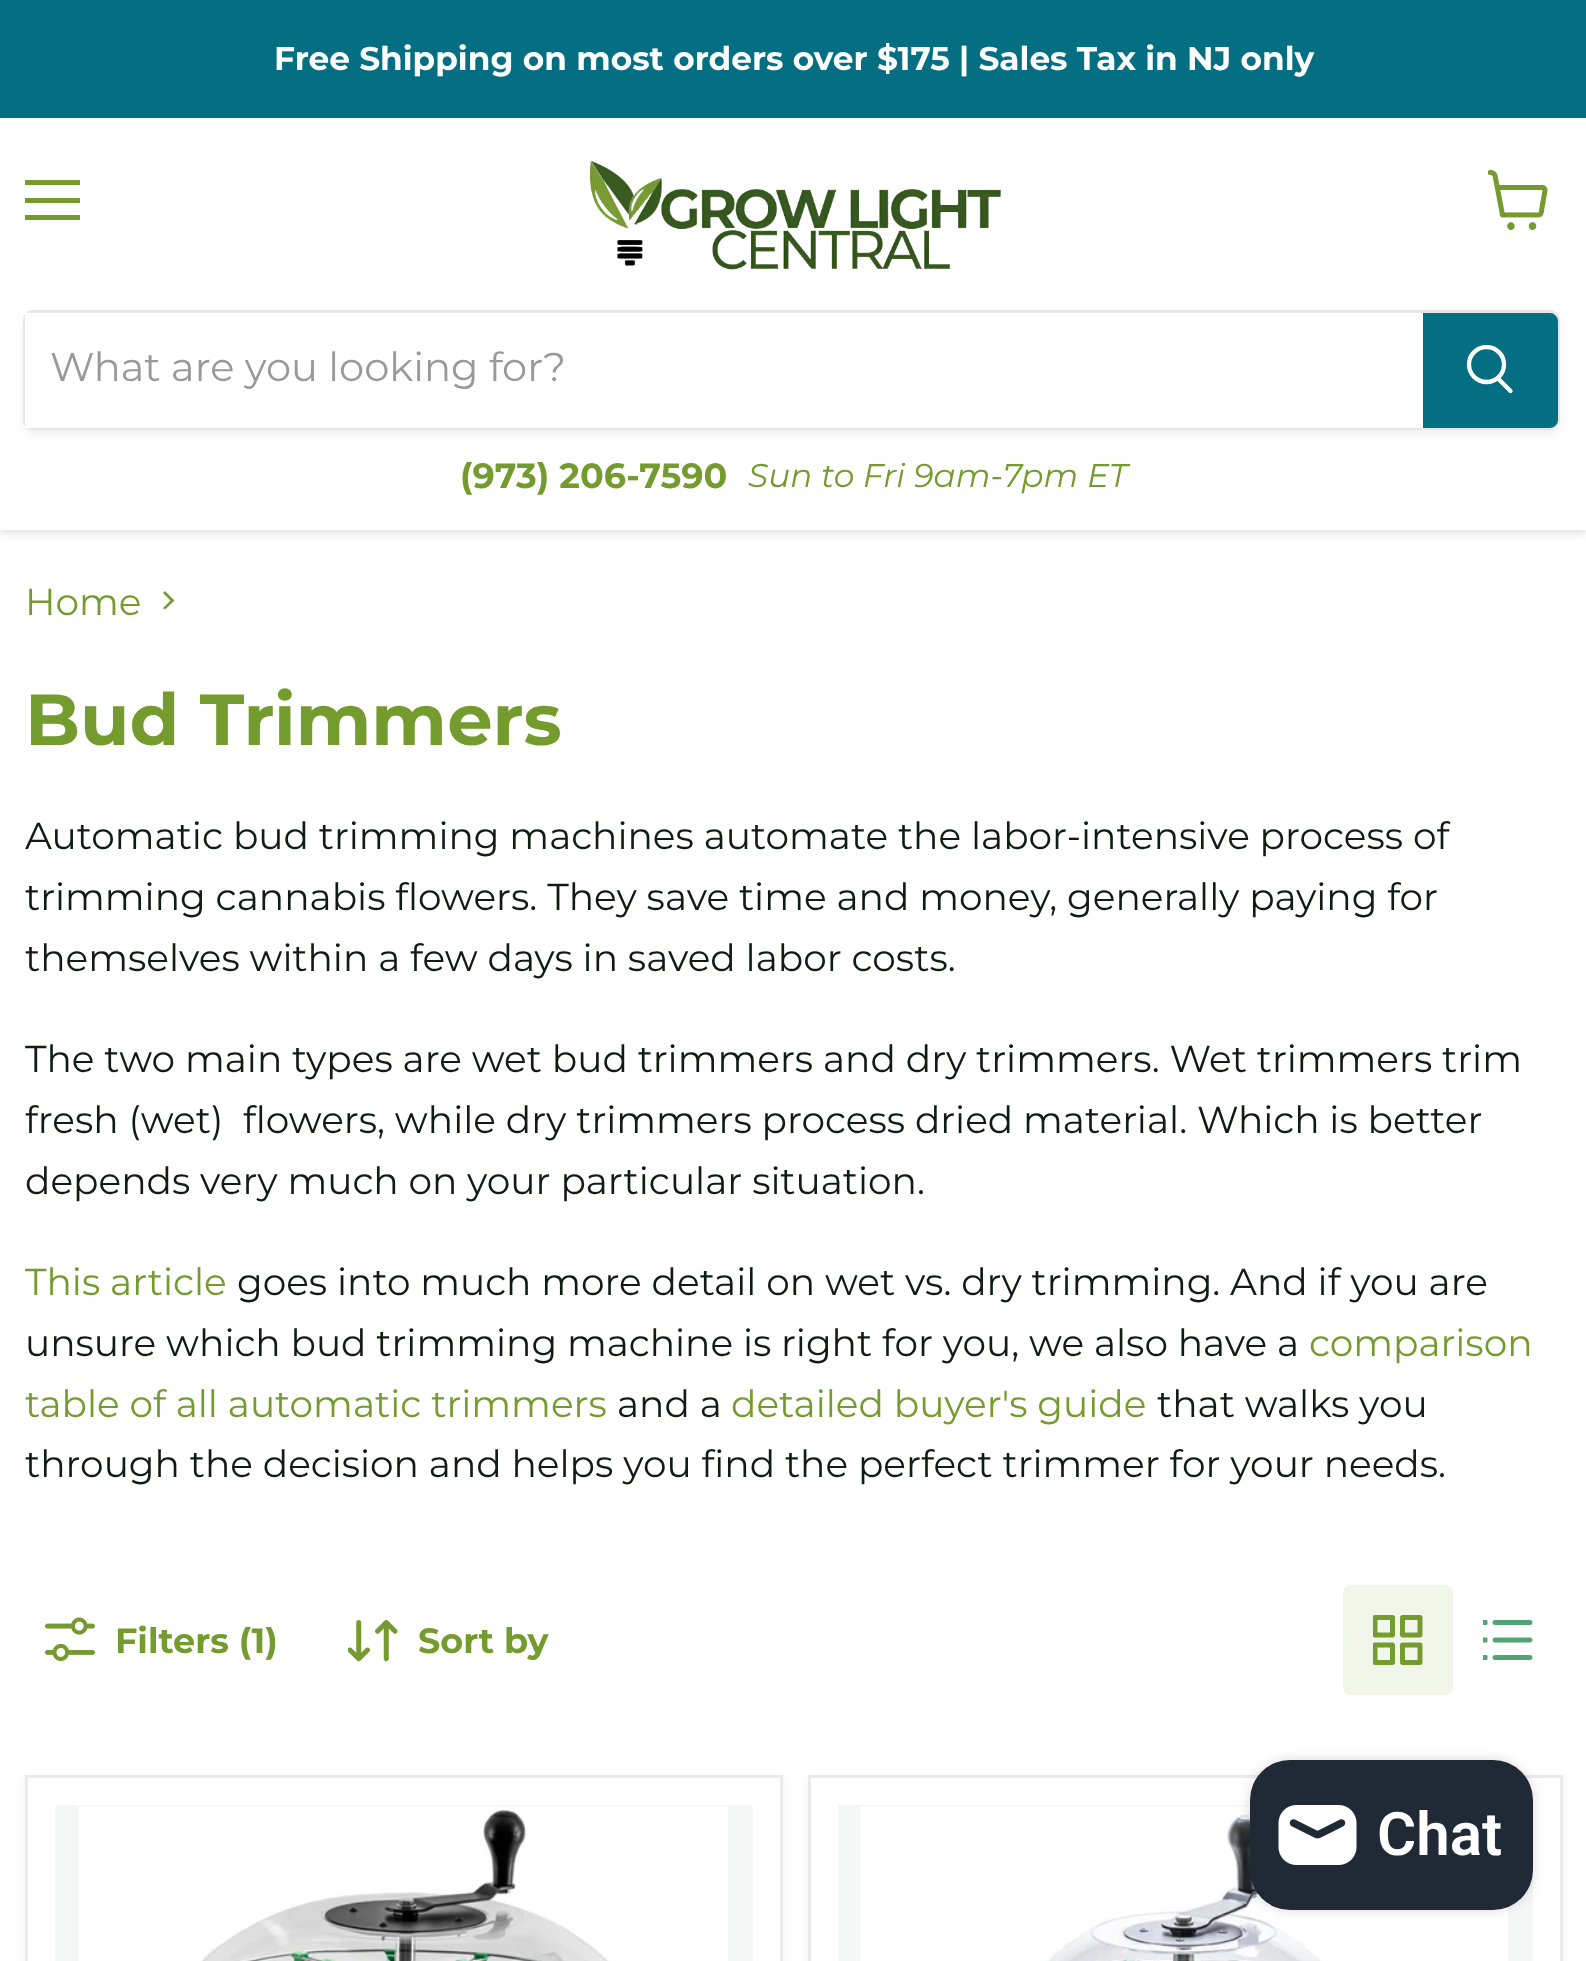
<svg xmlns="http://www.w3.org/2000/svg" xmlns:xlink="http://www.w3.org/1999/xlink" width="1586" height="1961" viewBox="0 0 1586 1961">
<style>
.cls-1{font:bold 32.8px Montserrat;fill:#ffffff}
.cls-2{font:100 40px Montserrat;fill:#999999}
.cls-3{font:bold 35px Montserrat;fill:#749b2e}
.cls-4{font:italic 32.8px Montserrat;fill:#749b2e}
.cls-5{font:100 37.5px Montserrat;fill:#749b2e}
.cls-6{font:bold 72px Montserrat;fill:#749b2e}
.cls-7{font:100 37.5px Montserrat;fill:#0e1c14}
.cls-8{font:600 60px Roboto;fill:#ffffff}
</style>
<defs>
<clipPath id="clip1"><rect x="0" y="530" width="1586" height="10"/></clipPath>
<clipPath id="clip2"><path d="M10 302H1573V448H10ZM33 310H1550C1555.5 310 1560 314.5 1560 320V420C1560 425.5 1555.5 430 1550 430H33C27.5 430 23 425.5 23 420V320C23 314.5 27.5 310 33 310Z" clip-rule="evenodd"/></clipPath>
<clipPath id="clip3"><rect x="1465" y="345" width="50" height="53"/></clipPath>
</defs>
<rect width="100%" height="100%" fill="#ffffff"/>
<g clip-path="url(#clip1)">
<rect fill="#808080" fill-opacity="0.25" filter="blur(5px)" x="0" y="120" width="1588" height="413"/>
</g>
<rect fill="#046e82" x="0" y="0" width="1586" height="118"/>
<rect fill="#749b2e" x="25" y="180" width="55" height="5"/>
<rect fill="#749b2e" x="25" y="198" width="55" height="5"/>
<rect fill="#749b2e" x="25" y="215" width="55" height="5"/>
<image xlink:href="image0.png" x="1488" y="170" width="60" height="60"/>
<image xlink:href="image1.png" x="589" y="160" width="412" height="110"/>
<g clip-path="url(#clip2)">
<rect fill="#808080" fill-opacity="0.11" filter="blur(4px)" x="23" y="315" width="1537" height="120" rx="10"/>
</g>
<rect fill="none" stroke="#808080" stroke-opacity="0.2" stroke-width="3" x="24.5" y="311.5" width="1534" height="117" rx="8.5"/>
<rect fill="#ffffff" x="25" y="313" width="1398" height="115"/>
<path fill="#046e82" stroke="#046e82" stroke-width="3" d="M1424.5 314.5H1550C1553.5 314.5 1556.5 317.5 1556.5 321V420C1556.5 423.5 1553.5 426.5 1550 426.5H1424.5Z"/>
<path fill="none" stroke="#ffffff" stroke-width="4.3" stroke-linecap="round" d="M1510.5 391L1498.5 379"/>
<g clip-path="url(#clip3)">
<circle fill="none" stroke="#ffffff" stroke-width="4.3" cx="1486.5" cy="364.5" r="17.5"/>
</g>
<path fill="#749b2e" fill-rule="evenodd" d="M163 608L165 609.5L174.5 600.5L165 591L163 593L170.5 600.5Z"/>
<image xlink:href="image2.png" x="45" y="1617" width="50" height="44"/>
<image xlink:href="image3.png" x="348" y="1620" width="50" height="42"/>
<rect fill="#f1f5ea" x="1343" y="1585" width="110" height="110" rx="8"/>
<image xlink:href="image4.png" x="1373" y="1615" width="50" height="50"/>
<image xlink:href="image5.png" x="1483" y="1620" width="50" height="40"/>
<rect fill="#808080" fill-opacity="0.11" filter="blur(5px)" x="25" y="1778" width="758" height="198"/>
<rect fill="#ffffff" stroke="#ebebeb" stroke-width="3" x="26.5" y="1776.5" width="755" height="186"/>
<rect fill="#f5f6f6" x="55" y="1805" width="698" height="156"/>
<image xlink:href="image6.png" x="78" y="1806" width="650" height="155"/>
<rect fill="#808080" fill-opacity="0.11" filter="blur(5px)" x="808" y="1778" width="755" height="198"/>
<rect fill="#ffffff" stroke="#ebebeb" stroke-width="3" x="809.5" y="1776.5" width="752" height="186"/>
<rect fill="#f5f6f6" x="838" y="1805" width="695" height="156"/>
<image xlink:href="image7.png" x="860" y="1806" width="648" height="155"/>
<rect fill="#000000" fill-opacity="0.15" filter="blur(6px)" x="1250" y="1760" width="283" height="150" rx="40"/>
<rect fill="#202a36" x="1250" y="1760" width="283" height="150" rx="40"/>
<image xlink:href="image8.png" x="1278" y="1805" width="79" height="60"/>
<text class="cls-1" x="274" y="70">Free Shipping on most orders over $175 | Sales Tax in NJ only</text>
<text class="cls-2" x="50" y="381">What are you looking for?</text>
<text class="cls-3" x="460" y="488">(973) 206-7590</text>
<text class="cls-4" x="748" y="487">Sun to Fri 9am-7pm ET</text>
<text class="cls-5" x="25" y="615">Home</text>
<text class="cls-6" x="25" y="745">Bud Trimmers</text>
<text class="cls-7"><tspan x="25" y="849">Automatic bud trimming machines automate the labor-intensive process of</tspan><tspan x="25" y="910">trimming cannabis flowers. They save time and money, generally paying for</tspan><tspan x="25" y="971">themselves within a few days in saved labor costs.</tspan></text>
<text class="cls-7" xml:space="preserve"><tspan x="25" y="1072">The two main types are wet bud trimmers and dry trimmers. Wet trimmers trim</tspan><tspan x="25" y="1133">fresh (wet)  flowers, while dry trimmers process dried material. Which is better</tspan><tspan x="25" y="1194">depends very much on your particular situation.</tspan></text>
<text class="cls-5" x="25" y="1295">This article</text>
<text class="cls-7" x="237" y="1295">goes into much more detail on wet vs. dry trimming. And if you are</text>
<text class="cls-7" x="25" y="1356">unsure which bud trimming machine is right for you, we also have a</text>
<text class="cls-5" x="1309" y="1356">comparison</text>
<text class="cls-5" x="25" y="1417">table of all automatic trimmers</text>
<text class="cls-7" x="617" y="1417">and a</text>
<text class="cls-5" x="731" y="1417">detailed buyer's guide</text>
<text class="cls-7" x="1157" y="1417">that walks you</text>
<text class="cls-7" x="25" y="1477">through the decision and helps you find the perfect trimmer for your needs.</text>
<text class="cls-3" x="115" y="1653">Filters (1)</text>
<text class="cls-3" x="418" y="1653">Sort by</text>
<text class="cls-8" x="1377" y="1855">Chat</text>
</svg>
